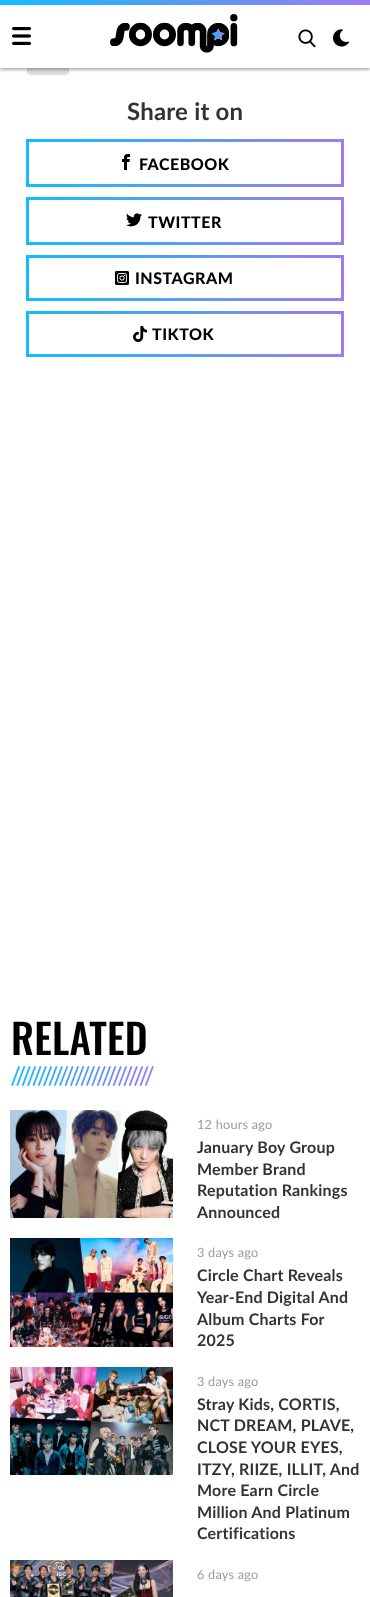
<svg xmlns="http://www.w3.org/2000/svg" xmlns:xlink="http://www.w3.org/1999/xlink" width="370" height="1597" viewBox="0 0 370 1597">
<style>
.cls-1{font:bold 24px Lato;letter-spacing:0.2px;fill:#333333}
.cls-2{font:900 16px Lato;letter-spacing:0.5px;fill:#000000}
.cls-3{font:500 41px Oswald;letter-spacing:0.2px;fill:#000000}
.cls-4{font:12.75px Lato;letter-spacing:0.2px;fill:#9c9c9c}
.cls-5{font:bold 16px Lato;letter-spacing:0.2px;fill:#333333}
</style>
<rect width="100%" height="100%" fill="#ffffff"/>
<rect fill="#dddddd" x="27" y="54" width="42" height="21" rx="4"/>
<rect fill="#000000" fill-opacity="0.3" filter="blur(1.5px)" x="0" y="2" width="370" height="68"/>
<rect fill="#ffffff" x="0" y="5" width="370" height="63"/>
<image xlink:href="image0.png" x="0" y="0" width="370" height="5"/>
<image xlink:href="image1.png" x="12" y="27" width="19" height="18"/>
<image xlink:href="image2.png" x="110" y="14" width="128" height="39"/>
<image xlink:href="image3.png" x="298" y="29" width="18" height="19"/>
<image xlink:href="image4.png" x="333" y="29" width="16" height="18"/>
<image xlink:href="image5.png" x="26" y="139" width="318" height="48"/>
<image xlink:href="image6.png" x="122" y="154" width="8" height="16"/>
<image xlink:href="image7.png" x="26" y="197" width="318" height="48"/>
<image xlink:href="image8.png" x="126" y="213" width="16" height="14"/>
<image xlink:href="image9.png" x="26" y="255" width="318" height="46"/>
<image xlink:href="image10.png" x="115" y="271" width="14" height="14"/>
<image xlink:href="image9.png" x="26" y="311" width="318" height="46"/>
<image xlink:href="image11.png" x="133" y="326" width="14" height="16"/>
<image xlink:href="image12.png" x="11" y="1066" width="143" height="20"/>
<image xlink:href="image13.png" x="10" y="1110" width="163" height="108"/>
<image xlink:href="image14.png" x="10" y="1238" width="163" height="109"/>
<image xlink:href="image15.png" x="10" y="1367" width="163" height="108"/>
<image xlink:href="image16.png" x="10" y="1560" width="163" height="37"/>
<text class="cls-1" x="127" y="120">Share it on</text>
<text class="cls-2" x="139" y="170">FACEBOOK</text>
<text class="cls-2" x="148" y="228">TWITTER</text>
<text class="cls-2" x="135" y="284">INSTAGRAM</text>
<text class="cls-2" x="152" y="340">TIKTOK</text>
<text class="cls-3" x="11" y="1055">RELATED</text>
<text class="cls-4" x="197" y="1129">12 hours ago</text>
<text class="cls-5"><tspan x="197" y="1153">January Boy Group</tspan><tspan x="197" y="1175">Member Brand</tspan><tspan x="197" y="1196">Reputation Rankings</tspan><tspan x="197" y="1218">Announced</tspan></text>
<text class="cls-4" x="197" y="1257">3 days ago</text>
<text class="cls-5"><tspan x="197" y="1281">Circle Chart Reveals</tspan><tspan x="197" y="1303">Year-End Digital And</tspan><tspan x="197" y="1325">Album Charts For</tspan><tspan x="197" y="1346">2025</tspan></text>
<text class="cls-4" x="197" y="1386">3 days ago</text>
<text class="cls-5"><tspan x="197" y="1410">Stray Kids, CORTIS,</tspan><tspan x="197" y="1431">NCT DREAM, PLAVE,</tspan><tspan x="197" y="1453">CLOSE YOUR EYES,</tspan><tspan x="197" y="1475">ITZY, RIIZE, ILLIT, And</tspan><tspan x="197" y="1496">More Earn Circle</tspan><tspan x="197" y="1518">Million And Platinum</tspan><tspan x="197" y="1539">Certifications</tspan></text>
<text class="cls-4" x="197" y="1579">6 days ago</text>
</svg>
